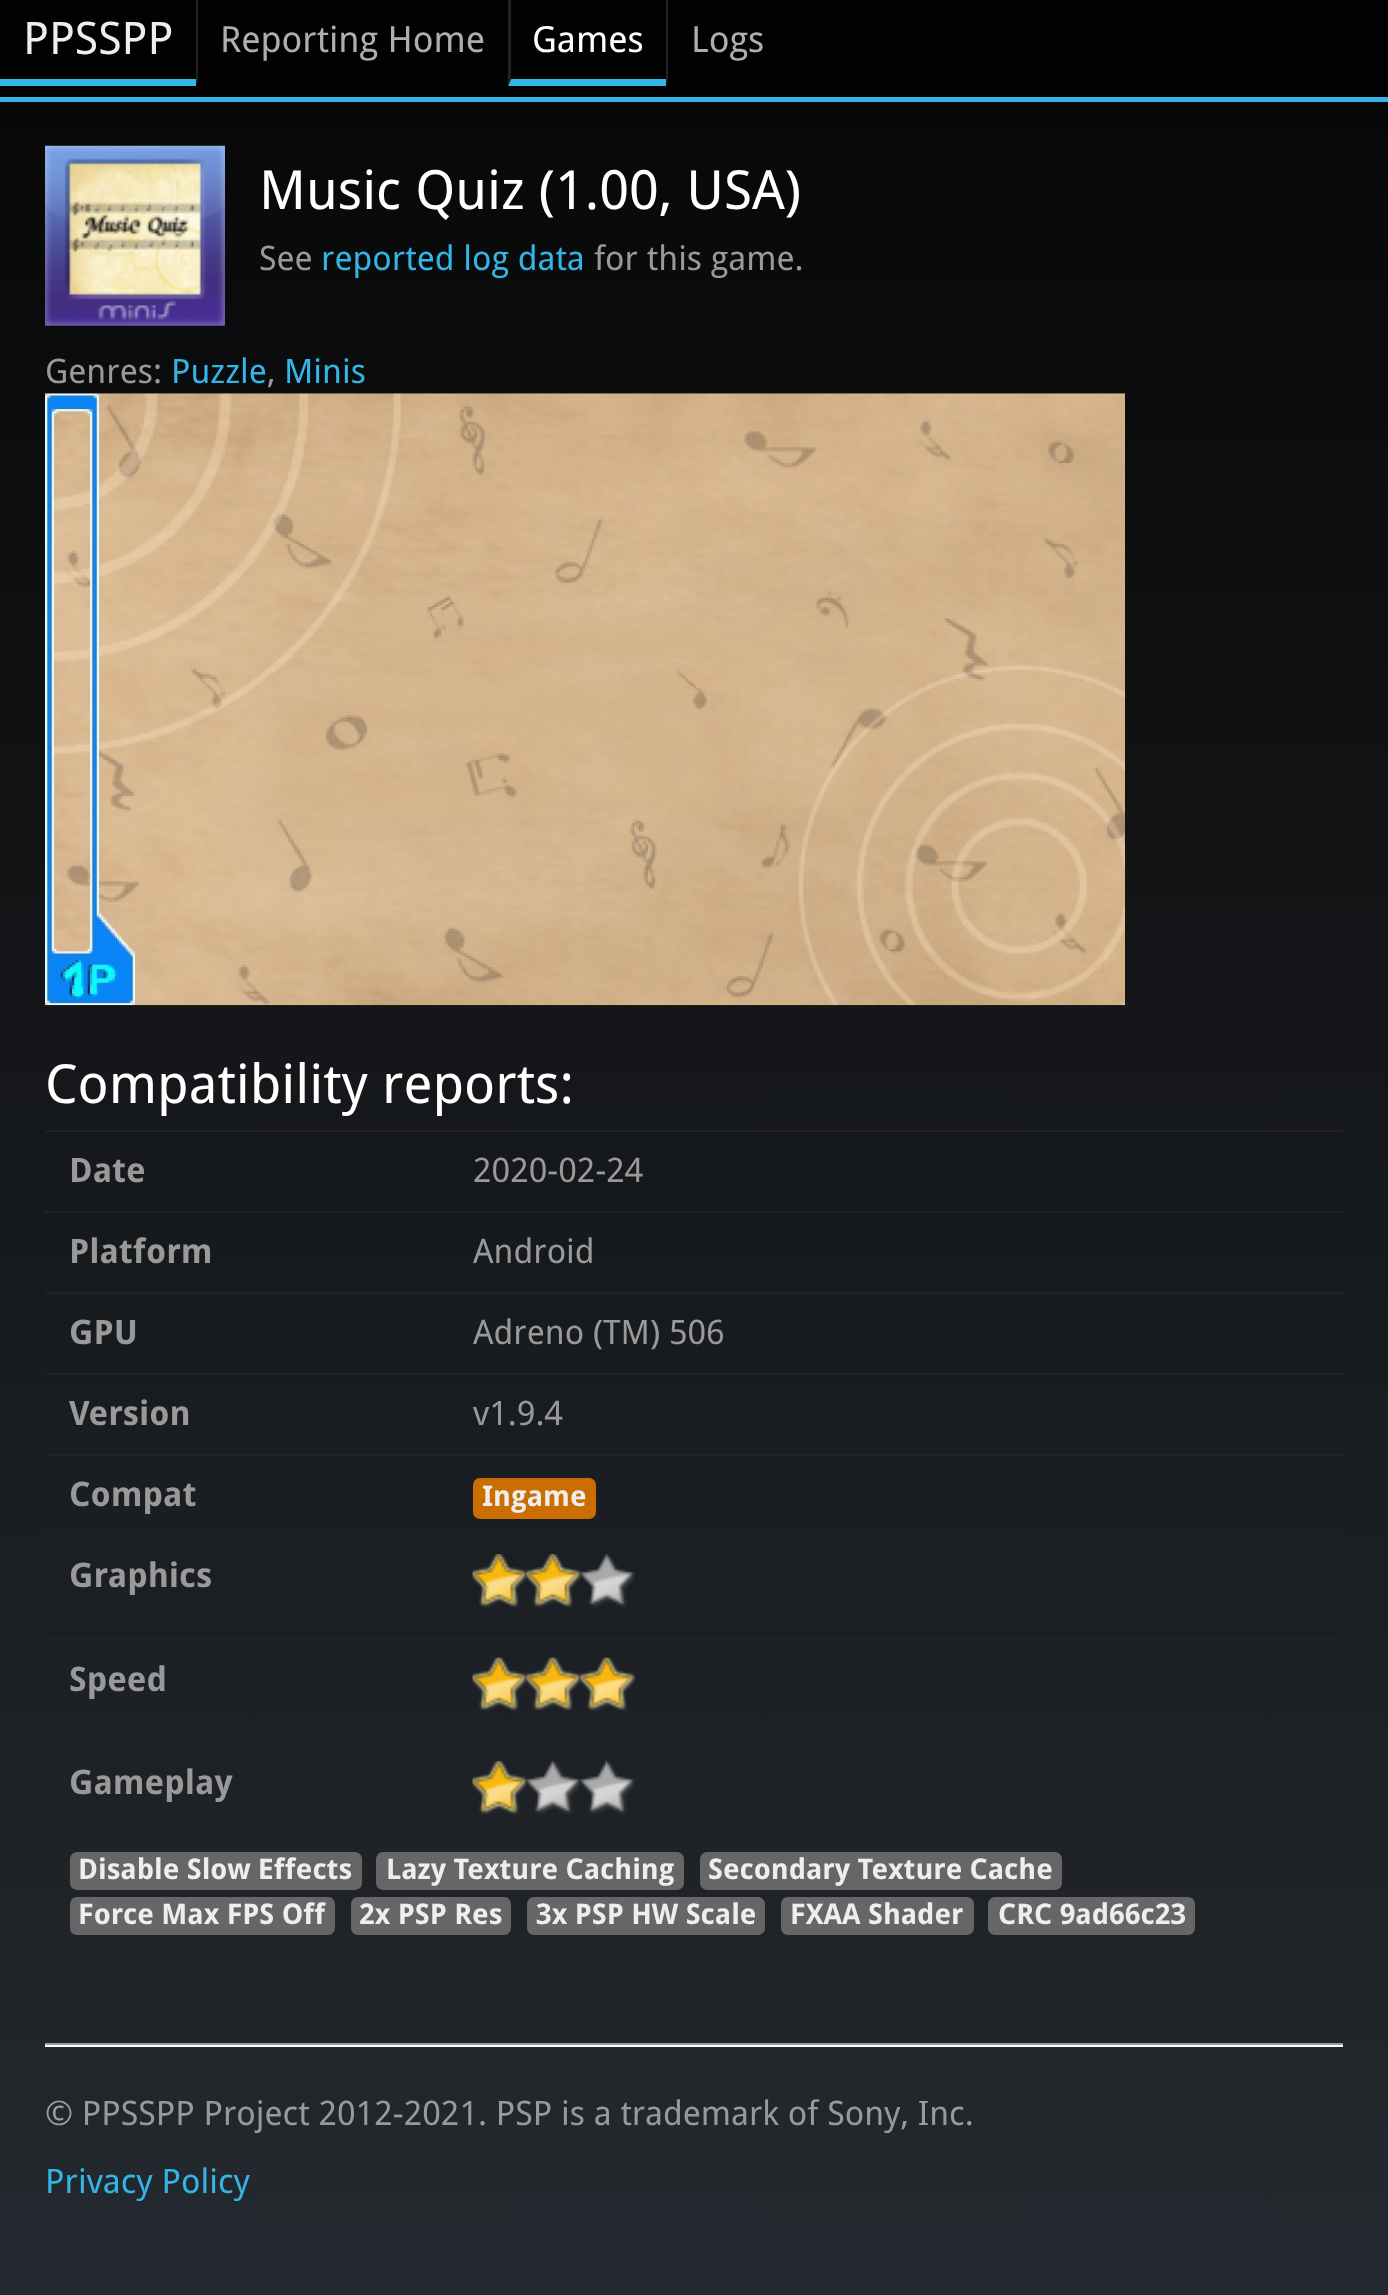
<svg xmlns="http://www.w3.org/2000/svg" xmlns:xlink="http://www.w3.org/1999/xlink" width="1388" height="2295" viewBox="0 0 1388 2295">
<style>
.cls-1{font:45px Droid Sans;fill:#eeeeee}
.cls-2{font:36px Droid Sans;fill:#adafae}
.cls-3{font:36px Droid Sans;fill:#ffffff}
.cls-4{font:54px Droid Sans;fill:#ffffff}
.cls-5{font:33.75px Droid Sans;fill:#999999}
.cls-6{font:33.75px Droid Sans;fill:#33b5e5}
.cls-7{font:bold 33.75px Droid Sans;fill:#999999}
.cls-8{font:bold 28.5px Droid Sans;fill:#eeeeee}
</style>
<defs>
<linearGradient id="g1" gradientUnits="userSpaceOnUse" x1="694" y1="-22" x2="694" y2="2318"><stop offset="0" stop-color="#060606"/><stop offset="1" stop-color="#252a30"/></linearGradient>
</defs>
<rect width="100%" height="100%" fill="#ffffff"/>
<rect fill="url(#g1)" x="0" y="102" width="1388" height="2193"/>
<rect fill="#020202" x="0" y="0" width="1388" height="97"/>
<rect fill="#33b5e5" x="0" y="97" width="1388" height="5"/>
<rect fill="#33b5e5" x="0" y="79" width="196" height="7"/>
<path fill="#222222" d="M196 86V-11H198V79Z"/>
<path fill="#33b5e5" d="M666 86H508L511 79H666Z"/>
<path fill="#222222" d="M508 86V-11H511V79Z"/>
<path fill="#222222" d="M666 86V-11H668V79Z"/>
<image xlink:href="image0.png" x="45" y="145" width="180" height="181"/>
<image xlink:href="image1.png" x="45" y="393" width="1080" height="613"/>
<rect fill="#222222" x="45" y="1130" width="1298" height="2"/>
<rect fill="#222222" x="45" y="1211" width="1298" height="2"/>
<rect fill="#222222" x="45" y="1292" width="1298" height="2"/>
<rect fill="#222222" x="45" y="1373" width="1298" height="2"/>
<rect fill="#222222" x="45" y="1454" width="1298" height="2"/>
<rect fill="#cc6d00" x="473" y="1478" width="123" height="41" rx="7"/>
<rect fill="#222222" x="45" y="1535" width="1298" height="2"/>
<image xlink:href="image2.png" x="472" y="1554" width="163" height="54"/>
<image xlink:href="image3.png" x="472" y="1554" width="109" height="53"/>
<rect fill="#222222" x="45" y="1638" width="1298" height="2"/>
<image xlink:href="image4.png" x="472" y="1657" width="163" height="55"/>
<image xlink:href="image5.png" x="472" y="1657" width="163" height="53"/>
<rect fill="#222222" x="45" y="1742" width="1298" height="2"/>
<image xlink:href="image6.png" x="472" y="1761" width="163" height="54"/>
<image xlink:href="image7.png" x="472" y="1761" width="55" height="53"/>
<rect fill="#666666" x="70" y="1852" width="292" height="38" rx="7"/>
<rect fill="#666666" x="376" y="1852" width="308" height="38" rx="7"/>
<rect fill="#666666" x="700" y="1852" width="362" height="38" rx="7"/>
<rect fill="#666666" x="70" y="1897" width="265" height="38" rx="7"/>
<rect fill="#666666" x="351" y="1897" width="160" height="38" rx="7"/>
<rect fill="#666666" x="527" y="1897" width="238" height="38" rx="7"/>
<rect fill="#666666" x="781" y="1897" width="193" height="38" rx="7"/>
<rect fill="#666666" x="988" y="1897" width="207" height="38" rx="7"/>
<rect fill="#999999" x="45" y="2043" width="1298" height="2"/>
<rect fill="#ffffff" x="45" y="2045" width="1298" height="2"/>
<text class="cls-1" x="23" y="54">PPSSPP</text>
<text class="cls-2" x="220" y="52">Reporting Home</text>
<text class="cls-3" x="532" y="52">Games</text>
<text class="cls-2" x="691" y="52">Logs</text>
<text class="cls-4" x="259" y="209">Music Quiz (1.00, USA)</text>
<text class="cls-5" x="259" y="270">See</text>
<text class="cls-6" x="321" y="270">reported log data</text>
<text class="cls-5" x="594" y="270">for this game.</text>
<text class="cls-5" x="45" y="383">Genres:</text>
<text class="cls-6" x="171" y="383">Puzzle</text>
<text class="cls-5" x="267" y="383">,</text>
<text class="cls-6" x="284" y="383">Minis</text>
<text class="cls-4" x="45" y="1103">Compatibility reports:</text>
<text class="cls-7" x="69" y="1182">Date</text>
<text class="cls-5" x="473" y="1182">2020-02-24</text>
<text class="cls-7" x="69" y="1263">Platform</text>
<text class="cls-5" x="473" y="1263">Android</text>
<text class="cls-7" x="69" y="1344">GPU</text>
<text class="cls-5" x="473" y="1344">Adreno (TM) 506</text>
<text class="cls-7" x="69" y="1425">Version</text>
<text class="cls-5" x="473" y="1425">v1.9.4</text>
<text class="cls-7" x="69" y="1506">Compat</text>
<text class="cls-8" x="482" y="1506">Ingame</text>
<text class="cls-7" x="69" y="1587">Graphics</text>
<text class="cls-7" x="69" y="1691">Speed</text>
<text class="cls-7" x="69" y="1794">Gameplay</text>
<text class="cls-8" x="78" y="1879">Disable Slow Effects</text>
<text class="cls-8" x="386" y="1879">Lazy Texture Caching</text>
<text class="cls-8" x="708" y="1879">Secondary Texture Cache</text>
<text class="cls-8" x="78" y="1924">Force Max FPS Off</text>
<text class="cls-8" x="359" y="1924">2x PSP Res</text>
<text class="cls-8" x="536" y="1924">3x PSP HW Scale</text>
<text class="cls-8" x="790" y="1924">FXAA Shader</text>
<text class="cls-8" x="998" y="1924">CRC 9ad66c23</text>
<text class="cls-5" x="45" y="2125">© PPSSPP Project 2012-2021. PSP is a trademark of Sony, Inc.</text>
<text class="cls-6" x="45" y="2193">Privacy Policy</text>
</svg>
